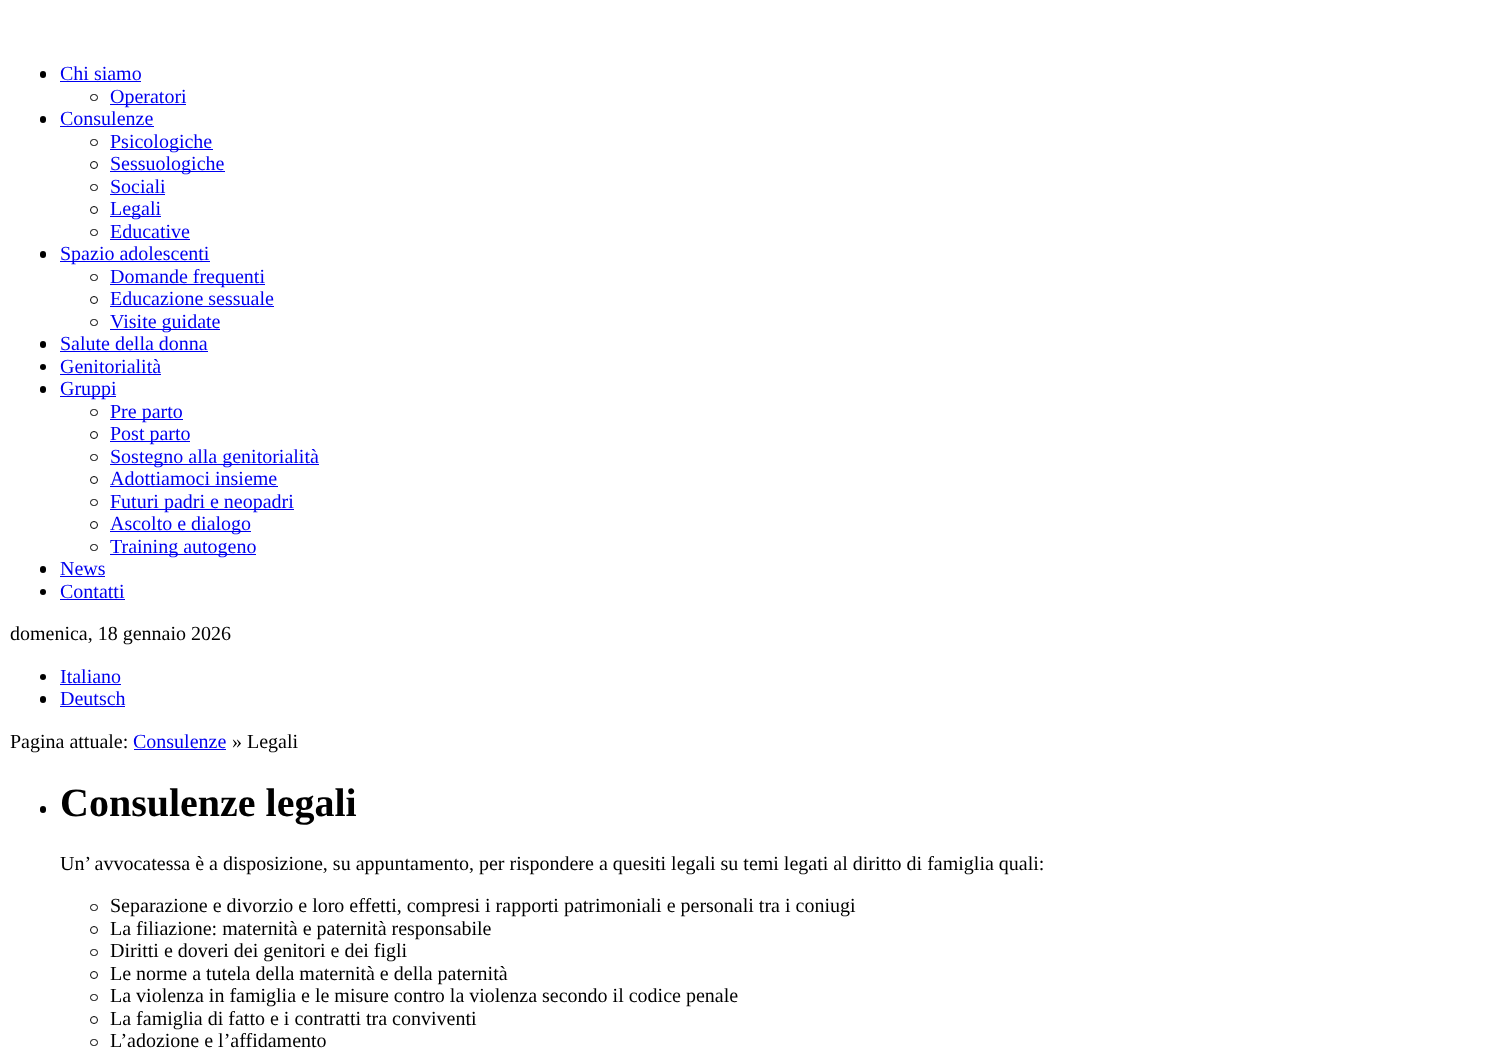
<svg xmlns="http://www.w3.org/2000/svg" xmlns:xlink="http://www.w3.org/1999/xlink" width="1505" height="1058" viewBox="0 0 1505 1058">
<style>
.cls-1{font:20px Liberation Serif;fill:#0000ee}
.cls-2{font:20px Liberation Serif;fill:#000000}
.cls-3{font:bold 40px Liberation Serif;fill:#000000}
</style>
<rect width="100%" height="100%" fill="#ffffff"/>
<rect fill="#000000" x="40" y="71" width="6" height="7" rx="3"/>
<rect fill="#0000ee" x="60" y="81" width="81" height="1"/>
<rect fill="none" stroke="#000000" x="90.5" y="94.5" width="7" height="6" rx="3"/>
<rect fill="#0000ee" x="110" y="104" width="76" height="1"/>
<rect fill="#000000" x="40" y="116" width="6" height="7" rx="3"/>
<rect fill="#0000ee" x="60" y="126" width="94" height="1"/>
<rect fill="none" stroke="#000000" x="90.5" y="139.5" width="7" height="6" rx="3"/>
<rect fill="#0000ee" x="110" y="149" width="103" height="1"/>
<circle fill="none" stroke="#000000" cx="94" cy="165" r="3.5"/>
<rect fill="#0000ee" x="110" y="171" width="115" height="1"/>
<rect fill="none" stroke="#000000" x="90.5" y="184.5" width="7" height="6" rx="3"/>
<rect fill="#0000ee" x="110" y="194" width="55" height="1"/>
<circle fill="none" stroke="#000000" cx="94" cy="210" r="3.5"/>
<rect fill="#0000ee" x="110" y="216" width="51" height="1"/>
<rect fill="none" stroke="#000000" x="90.5" y="229.5" width="7" height="6" rx="3"/>
<rect fill="#0000ee" x="110" y="239" width="80" height="1"/>
<rect fill="#000000" x="40" y="251" width="6" height="7" rx="3"/>
<rect fill="#0000ee" x="60" y="261" width="150" height="1"/>
<rect fill="none" stroke="#000000" x="90.5" y="274.5" width="7" height="6" rx="3"/>
<rect fill="#0000ee" x="110" y="284" width="155" height="1"/>
<circle fill="none" stroke="#000000" cx="94" cy="300" r="3.5"/>
<rect fill="#0000ee" x="110" y="306" width="164" height="1"/>
<rect fill="none" stroke="#000000" x="90.5" y="319.5" width="7" height="6" rx="3"/>
<rect fill="#0000ee" x="110" y="329" width="110" height="1"/>
<rect fill="#000000" x="40" y="341" width="6" height="7" rx="3"/>
<rect fill="#0000ee" x="60" y="351" width="148" height="1"/>
<circle fill="#000000" cx="43" cy="367" r="3"/>
<rect fill="#0000ee" x="60" y="374" width="101" height="1"/>
<rect fill="#000000" x="40" y="386" width="6" height="7" rx="3"/>
<rect fill="#0000ee" x="60" y="396" width="56" height="1"/>
<rect fill="none" stroke="#000000" x="90.5" y="409.5" width="7" height="6" rx="3"/>
<rect fill="#0000ee" x="110" y="419" width="73" height="1"/>
<circle fill="none" stroke="#000000" cx="94" cy="435" r="3.5"/>
<rect fill="#0000ee" x="110" y="441" width="80" height="1"/>
<rect fill="none" stroke="#000000" x="90.5" y="454.5" width="7" height="6" rx="3"/>
<rect fill="#0000ee" x="110" y="464" width="209" height="1"/>
<circle fill="none" stroke="#000000" cx="94" cy="480" r="3.5"/>
<rect fill="#0000ee" x="110" y="486" width="168" height="1"/>
<rect fill="none" stroke="#000000" x="90.5" y="499.5" width="7" height="6" rx="3"/>
<rect fill="#0000ee" x="110" y="509" width="184" height="1"/>
<circle fill="none" stroke="#000000" cx="94" cy="525" r="3.5"/>
<rect fill="#0000ee" x="110" y="531" width="141" height="1"/>
<rect fill="none" stroke="#000000" x="90.5" y="544.5" width="7" height="6" rx="3"/>
<rect fill="#0000ee" x="110" y="554" width="146" height="1"/>
<rect fill="#000000" x="40" y="566" width="6" height="7" rx="3"/>
<rect fill="#0000ee" x="60" y="576" width="45" height="1"/>
<circle fill="#000000" cx="43" cy="592" r="3"/>
<rect fill="#0000ee" x="60" y="599" width="65" height="1"/>
<circle fill="#000000" cx="43" cy="677" r="3"/>
<rect fill="#0000ee" x="60" y="684" width="61" height="1"/>
<rect fill="#000000" x="40" y="696" width="6" height="7" rx="3"/>
<rect fill="#0000ee" x="60" y="706" width="65" height="1"/>
<rect fill="#0000ee" x="134" y="749" width="92" height="1"/>
<rect fill="#000000" x="40" y="806" width="6" height="7" rx="3"/>
<rect fill="none" stroke="#000000" x="90.5" y="904.5" width="7" height="6" rx="3"/>
<circle fill="none" stroke="#000000" cx="94" cy="930" r="3.5"/>
<rect fill="none" stroke="#000000" x="90.5" y="949.5" width="7" height="6" rx="3"/>
<circle fill="none" stroke="#000000" cx="94" cy="975" r="3.5"/>
<rect fill="none" stroke="#000000" x="90.5" y="994.5" width="7" height="6" rx="3"/>
<circle fill="none" stroke="#000000" cx="94" cy="1020" r="3.5"/>
<rect fill="none" stroke="#000000" x="90.5" y="1039.5" width="7" height="6" rx="3"/>
<text class="cls-1" x="60" y="80">Chi siamo</text>
<text class="cls-1" x="110" y="103">Operatori</text>
<text class="cls-1" x="60" y="125">Consulenze</text>
<text class="cls-1"><tspan x="110" y="148">Psicologiche</tspan><tspan x="110" y="170">Sessuologiche</tspan><tspan x="110" y="193">Sociali</tspan><tspan x="110" y="215">Legali</tspan><tspan x="110" y="238">Educative</tspan></text>
<text class="cls-1" x="60" y="260">Spazio adolescenti</text>
<text class="cls-1"><tspan x="110" y="283">Domande frequenti</tspan><tspan x="110" y="305">Educazione sessuale</tspan><tspan x="110" y="328">Visite guidate</tspan></text>
<text class="cls-1"><tspan x="60" y="350">Salute della donna</tspan><tspan x="60" y="373">Genitorialità</tspan><tspan x="60" y="395">Gruppi</tspan></text>
<text class="cls-1"><tspan x="110" y="418">Pre parto</tspan><tspan x="110" y="440">Post parto</tspan><tspan x="110" y="463">Sostegno alla genitorialità</tspan><tspan x="110" y="485">Adottiamoci insieme</tspan><tspan x="110" y="508">Futuri padri e neopadri</tspan><tspan x="110" y="530">Ascolto e dialogo</tspan><tspan x="110" y="553">Training autogeno</tspan></text>
<text class="cls-1"><tspan x="60" y="575">News</tspan><tspan x="60" y="598">Contatti</tspan></text>
<text class="cls-2" x="10" y="640">domenica, 18 gennaio 2026</text>
<text class="cls-1"><tspan x="60" y="683">Italiano</tspan><tspan x="60" y="705">Deutsch</tspan></text>
<text class="cls-2" x="10" y="748">Pagina attuale:</text>
<text class="cls-1" x="133" y="748">Consulenze</text>
<text class="cls-2" x="232" y="748">» Legali</text>
<text class="cls-3" x="60" y="816">Consulenze legali</text>
<text class="cls-2" x="60" y="870">Un’ avvocatessa è a disposizione, su appuntamento, per rispondere a quesiti legali su temi legati al diritto di famiglia quali:</text>
<text class="cls-2"><tspan x="110" y="912">Separazione e divorzio e loro effetti, compresi i rapporti patrimoniali e personali tra i coniugi</tspan><tspan x="110" y="935">La filiazione: maternità e paternità responsabile</tspan><tspan x="110" y="957">Diritti e doveri dei genitori e dei figli</tspan><tspan x="110" y="980">Le norme a tutela della maternità e della paternità</tspan><tspan x="110" y="1002">La violenza in famiglia e le misure contro la violenza secondo il codice penale</tspan><tspan x="110" y="1025">La famiglia di fatto e i contratti tra conviventi</tspan><tspan x="110" y="1047">L’adozione e l’affidamento</tspan></text>
</svg>
